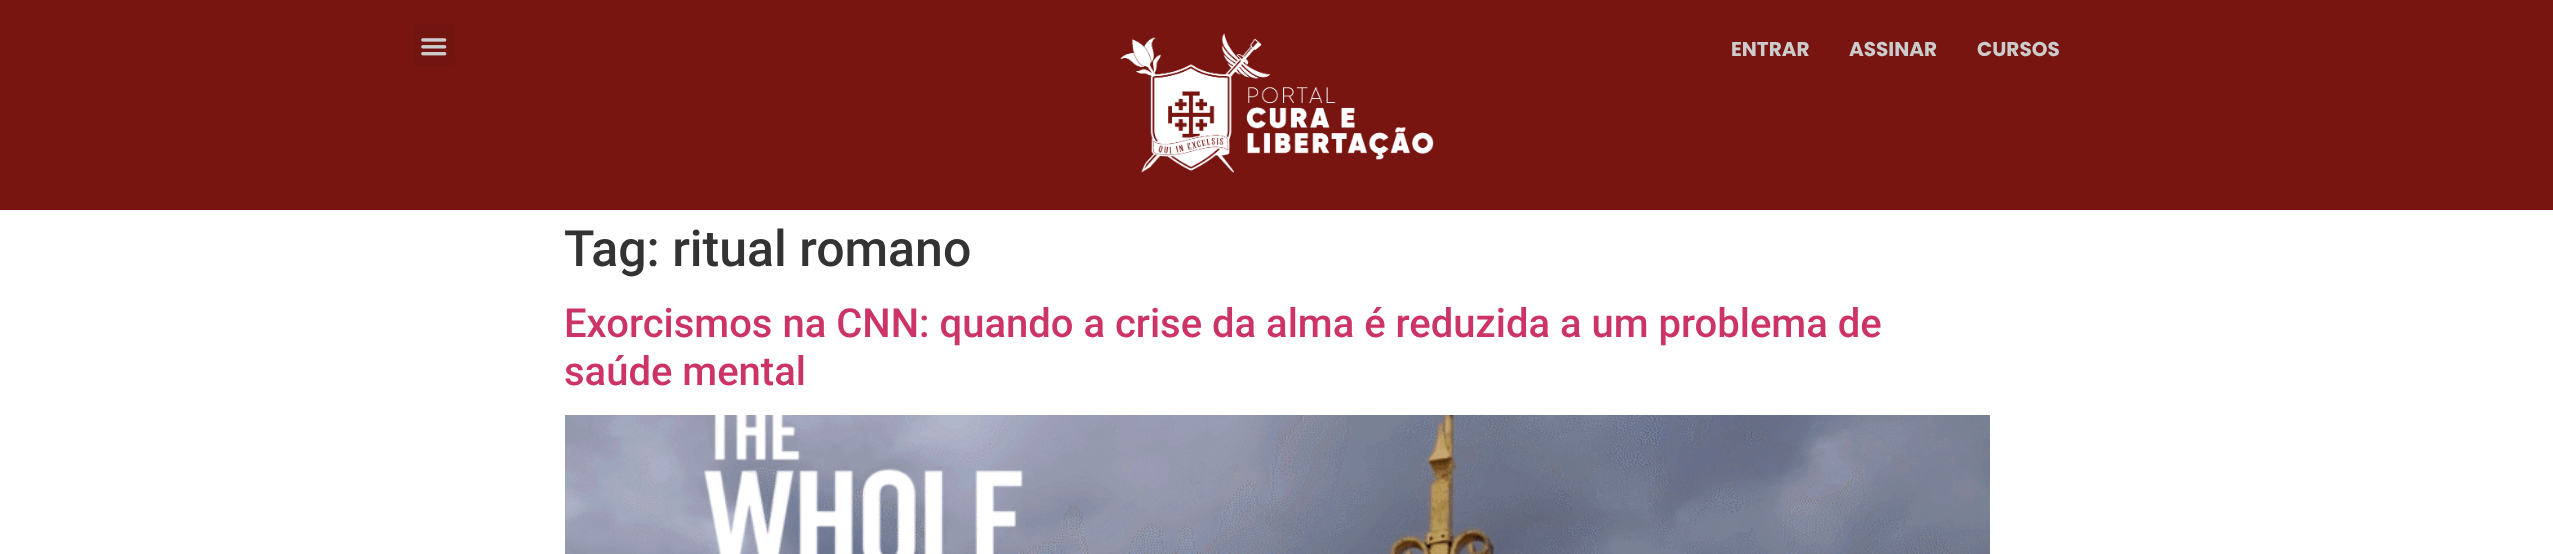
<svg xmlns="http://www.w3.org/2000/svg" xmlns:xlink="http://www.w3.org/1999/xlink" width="2553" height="554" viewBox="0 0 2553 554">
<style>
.cls-1{font:bold 20px Poppins;fill:#cccccc}
.cls-2{font:500 50px Roboto;fill:#333333}
.cls-3{font:500 40px Roboto;fill:#cc3366}
</style>
<rect width="100%" height="100%" fill="#ffffff"/>
<rect fill="#781511" x="0" y="0" width="2553" height="210"/>
<rect fill="#721410" x="414" y="25" width="41" height="41" rx="4"/>
<image xlink:href="image0.png" x="421" y="38" width="26" height="18"/>
<image xlink:href="image1.png" x="1120" y="33" width="314" height="140"/>
<image xlink:href="image2.png" x="565" y="415" width="1425" height="139"/>
<text class="cls-1" x="1731" y="56">ENTRAR</text>
<text class="cls-1" x="1849" y="56">ASSINAR</text>
<text class="cls-1" x="1977" y="56">CURSOS</text>
<text class="cls-2" x="564" y="266">Tag: ritual romano</text>
<text class="cls-3"><tspan x="564" y="337">Exorcismos na CNN: quando a crise da alma é reduzida a um problema de</tspan><tspan x="564" y="385">saúde mental</tspan></text>
</svg>
